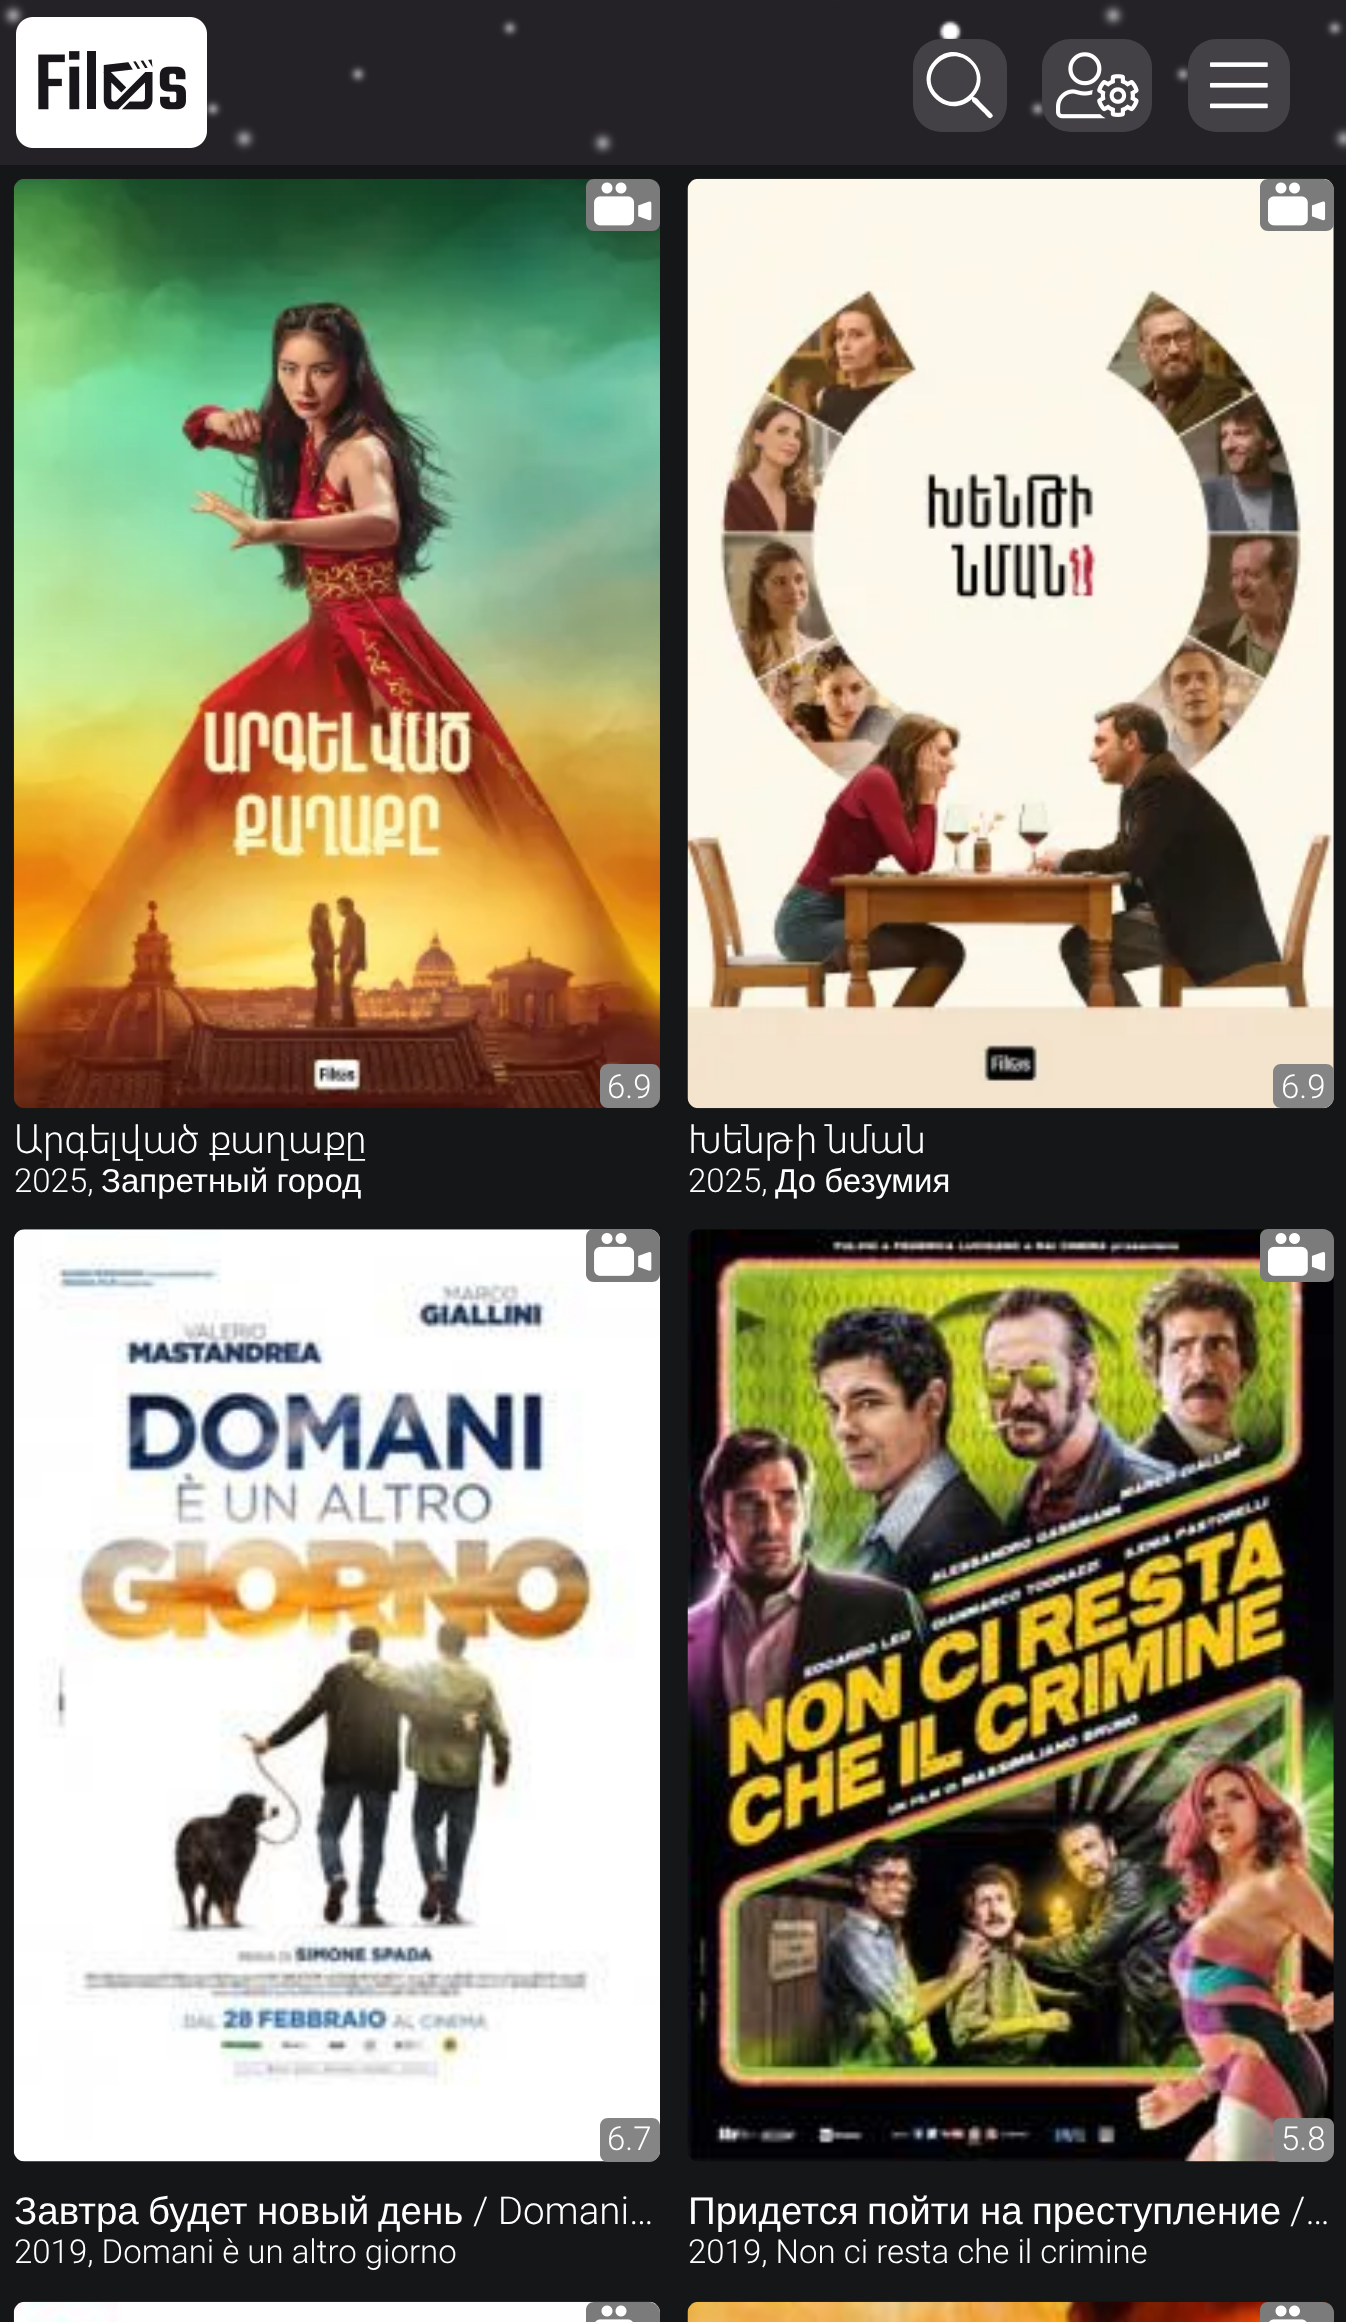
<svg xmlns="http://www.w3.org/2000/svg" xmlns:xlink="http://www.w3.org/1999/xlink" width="1346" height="2322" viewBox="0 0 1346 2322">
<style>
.cls-1{font:300 33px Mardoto;fill:#ffffff}
.cls-2{font:300 38.5px Mardoto;fill:#ffffff}
.cls-3{font:33px Liberation Sans;fill:#ffffff}
.cls-4{font:38.5px Liberation Sans;fill:#ffffff}
</style>
<rect width="100%" height="100%" fill="#151617"/>
<rect fill="#242227" x="0" y="0" width="1346" height="165"/>
<image xlink:href="image0.png" x="0" y="0" width="1346" height="156"/>
<image xlink:href="image1.png" x="16" y="17" width="191" height="131"/>
<rect fill="#434146" x="913" y="39" width="94" height="93" rx="28"/>
<path fill="#ffffff" d="M992 114L993 116L991 118C989 120 985 113 983 112L975 104C972 101 972 102 972 99C946 122 910 85 935 60C959 36 997 72 973 97C977 97 979 101 981 103ZM938 95C959 116 991 84 970 63C949 42 916 74 938 95Z"/>
<rect fill="#434146" x="1042" y="39" width="110" height="93" rx="28"/>
<image xlink:href="image2.png" x="1056" y="52" width="83" height="67"/>
<rect fill="#434146" x="1188" y="39" width="102" height="93" rx="28"/>
<image xlink:href="image3.png" x="1210" y="62" width="58" height="47"/>
<image xlink:href="image4.png" x="13" y="178" width="647" height="931"/>
<path fill="#7b7b7b" d="M594 179H649C655 179 660 184 660 190V223C660 227.5 656.5 231 652 231H594C589.5 231 586 227.5 586 223V187C586 182.5 589.5 179 594 179Z"/>
<image xlink:href="image5.png" x="594" y="182" width="58" height="44"/>
<path fill="#858585" d="M608 1064H652C656.5 1064 660 1067.5 660 1072V1097C660 1103 655 1108 649 1108H608C603.5 1108 600 1104.5 600 1100V1072C600 1067.5 603.5 1064 608 1064Z"/>
<image xlink:href="image6.png" x="687" y="178" width="647" height="931"/>
<path fill="#7b7b7b" d="M1268 179H1323C1329 179 1334 184 1334 190V223C1334 227.5 1330.5 231 1326 231H1268C1263.5 231 1260 227.5 1260 223V187C1260 182.5 1263.5 179 1268 179Z"/>
<image xlink:href="image7.png" x="1268" y="182" width="58" height="44"/>
<path fill="#858585" d="M1281 1064H1326C1330.5 1064 1334 1067.5 1334 1072V1097C1334 1103 1329 1108 1323 1108H1281C1276.5 1108 1273 1104.5 1273 1100V1072C1273 1067.5 1276.5 1064 1281 1064Z"/>
<image xlink:href="image8.png" x="13" y="1229" width="647" height="933"/>
<path fill="#7b7b7b" d="M594 1229H649C655 1229 660 1234 660 1240V1274C660 1278.5 656.5 1282 652 1282H594C589.5 1282 586 1278.5 586 1274V1237C586 1232.5 589.5 1229 594 1229Z"/>
<image xlink:href="image9.png" x="594" y="1233" width="58" height="43"/>
<path fill="#858585" d="M608 2118H652C656.5 2118 660 2121.5 660 2126V2151C660 2157 655 2162 649 2162H608C603.5 2162 600 2158.5 600 2154V2126C600 2121.5 603.5 2118 608 2118Z"/>
<image xlink:href="image10.png" x="687" y="1229" width="647" height="933"/>
<path fill="#7b7b7b" d="M1268 1229H1323C1329 1229 1334 1234 1334 1240V1274C1334 1278.5 1330.5 1282 1326 1282H1268C1263.5 1282 1260 1278.5 1260 1274V1237C1260 1232.5 1263.5 1229 1268 1229Z"/>
<image xlink:href="image11.png" x="1268" y="1233" width="58" height="43"/>
<path fill="#858585" d="M1281 2118H1326C1330.5 2118 1334 2121.5 1334 2126V2151C1334 2157 1329 2162 1323 2162H1281C1276.5 2162 1273 2158.5 1273 2154V2126C1273 2121.5 1276.5 2118 1281 2118Z"/>
<image xlink:href="image12.png" x="13" y="2301" width="647" height="21"/>
<path fill="#7b7b7b" d="M594 2302H649C655 2302 660 2307 660 2313V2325C660 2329.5 656.5 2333 652 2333H594C589.5 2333 586 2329.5 586 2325V2310C586 2305.5 589.5 2302 594 2302Z"/>
<image xlink:href="image13.png" x="595" y="2305" width="38" height="17"/>
<image xlink:href="image14.png" x="687" y="2301" width="647" height="21"/>
<path fill="#7b7b7b" d="M1268 2302H1323C1329 2302 1334 2307 1334 2313V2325C1334 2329.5 1330.5 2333 1326 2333H1268C1263.5 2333 1260 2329.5 1260 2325V2310C1260 2305.5 1263.5 2302 1268 2302Z"/>
<image xlink:href="image15.png" x="1269" y="2305" width="38" height="17"/>
<text class="cls-1" x="607" y="1098">6.9</text>
<text class="cls-2" x="14" y="1153">Արգելված քաղաքը</text>
<text class="cls-1" x="14" y="1192">2025,</text>
<text class="cls-3" x="101" y="1192" word-spacing="-1">Запретный город</text>
<text class="cls-1" x="1281" y="1098">6.9</text>
<text class="cls-2" x="688" y="1153">Խենթի նման</text>
<text class="cls-1" x="688" y="1192">2025,</text>
<text class="cls-3" x="775" y="1192" word-spacing="-1">До безумия</text>
<text class="cls-1" x="607" y="2150">6.7</text>
<text class="cls-4" x="14" y="2224">Завтра</text>
<text class="cls-4" x="148" y="2224">будет</text>
<text class="cls-4" x="257" y="2224">новый</text>
<text class="cls-4" x="378" y="2224">день</text>
<text class="cls-2" x="473" y="2224">/ Domani…</text>
<text class="cls-1" x="14" y="2263">2019, Domani è un altro giorno</text>
<text class="cls-1" x="1281" y="2150">5.8</text>
<text class="cls-4" x="688" y="2224">Придется</text>
<text class="cls-4" x="867" y="2224">пойти</text>
<text class="cls-4" x="980" y="2224">на</text>
<text class="cls-4" x="1032" y="2224">преступление</text>
<text class="cls-2" x="1290" y="2224">/…</text>
<text class="cls-1" x="688" y="2263">2019, Non ci resta che il crimine</text>
</svg>
